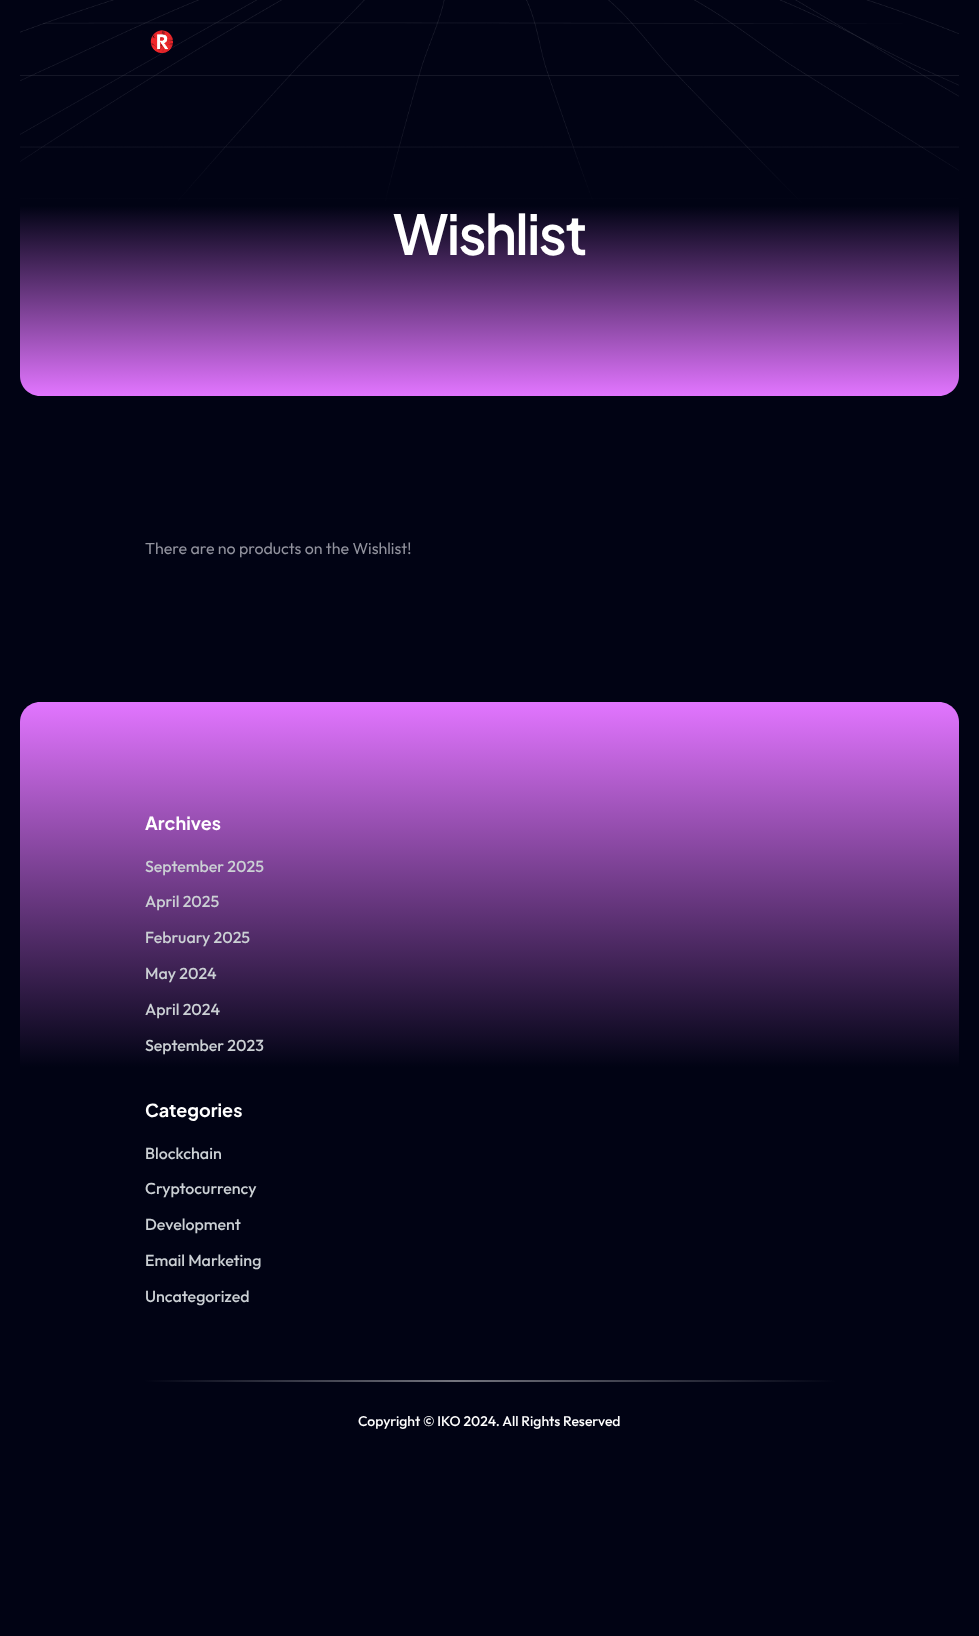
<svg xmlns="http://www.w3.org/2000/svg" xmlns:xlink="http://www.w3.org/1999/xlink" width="979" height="1636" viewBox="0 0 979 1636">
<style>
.cls-1{font:600 55px Plus Jakarta Sans;letter-spacing:-1.75px;fill:#ffffff}
.cls-2{font:16px Outfit;fill:#92939e}
.cls-3{font:bold 18px Plus Jakarta Sans;fill:#ffffff}
.cls-4{font:500 16px Outfit;fill:#cbd0d4}
.cls-5{font:500 14px Outfit;fill:#ffffff}
</style>
<defs>
<linearGradient id="g1" gradientUnits="userSpaceOnUse" x1="490" y1="396" x2="490" y2="0"><stop offset="0" stop-color="#e275ff"/><stop offset="0.48" stop-color="#010314"/><stop offset="0.65" stop-color="#010314" stop-opacity="0"/></linearGradient>
<linearGradient id="g2" gradientUnits="userSpaceOnUse" x1="490" y1="702" x2="490" y2="1463"><stop offset="0" stop-color="#e275ff"/><stop offset="0.48" stop-color="#010314"/><stop offset="0.65" stop-color="#010314"/></linearGradient>
<linearGradient id="g3" gradientUnits="userSpaceOnUse" x1="663" y1="1208" x2="317" y2="1554"><stop offset="0" stop-color="#010314"/><stop offset="0.55" stop-color="#73747e"/><stop offset="1" stop-color="#010314"/></linearGradient>
</defs>
<rect width="100%" height="100%" fill="#010314"/>
<image xlink:href="image1.png" x="20" y="0" width="939" height="396"/>
<path fill="url(#g1)" d="M20 0H959V376C959 387 950 396 939 396H40C29 396 20 387 20 376Z"/>
<image xlink:href="image0.png" x="150" y="30" width="23" height="23"/>
<path fill="url(#g2)" d="M40 702H939C950 702 959 711 959 722V1463H20V722C20 711 29 702 40 702Z"/>
<rect fill="url(#g3)" x="145" y="1380" width="690" height="2"/>
<text class="cls-1" x="393" y="255">Wishlist</text>
<text class="cls-2" x="145" y="554">There are no products on the Wishlist!</text>
<text class="cls-3" x="145" y="830">Archives</text>
<text class="cls-4" x="145" y="872">September 2025</text>
<text class="cls-4" x="145" y="907">April 2025</text>
<text class="cls-4" x="145" y="943">February 2025</text>
<text class="cls-4" x="145" y="979">May 2024</text>
<text class="cls-4" x="145" y="1015">April 2024</text>
<text class="cls-4" x="145" y="1051">September 2023</text>
<text class="cls-3" x="145" y="1117">Categories</text>
<text class="cls-4" x="145" y="1159">Blockchain</text>
<text class="cls-4" x="145" y="1194">Cryptocurrency</text>
<text class="cls-4" x="145" y="1230">Development</text>
<text class="cls-4" x="145" y="1266">Email Marketing</text>
<text class="cls-4" x="145" y="1302">Uncategorized</text>
<text class="cls-5" x="358" y="1426">Copyright © IKO 2024. All Rights Reserved</text>
</svg>
